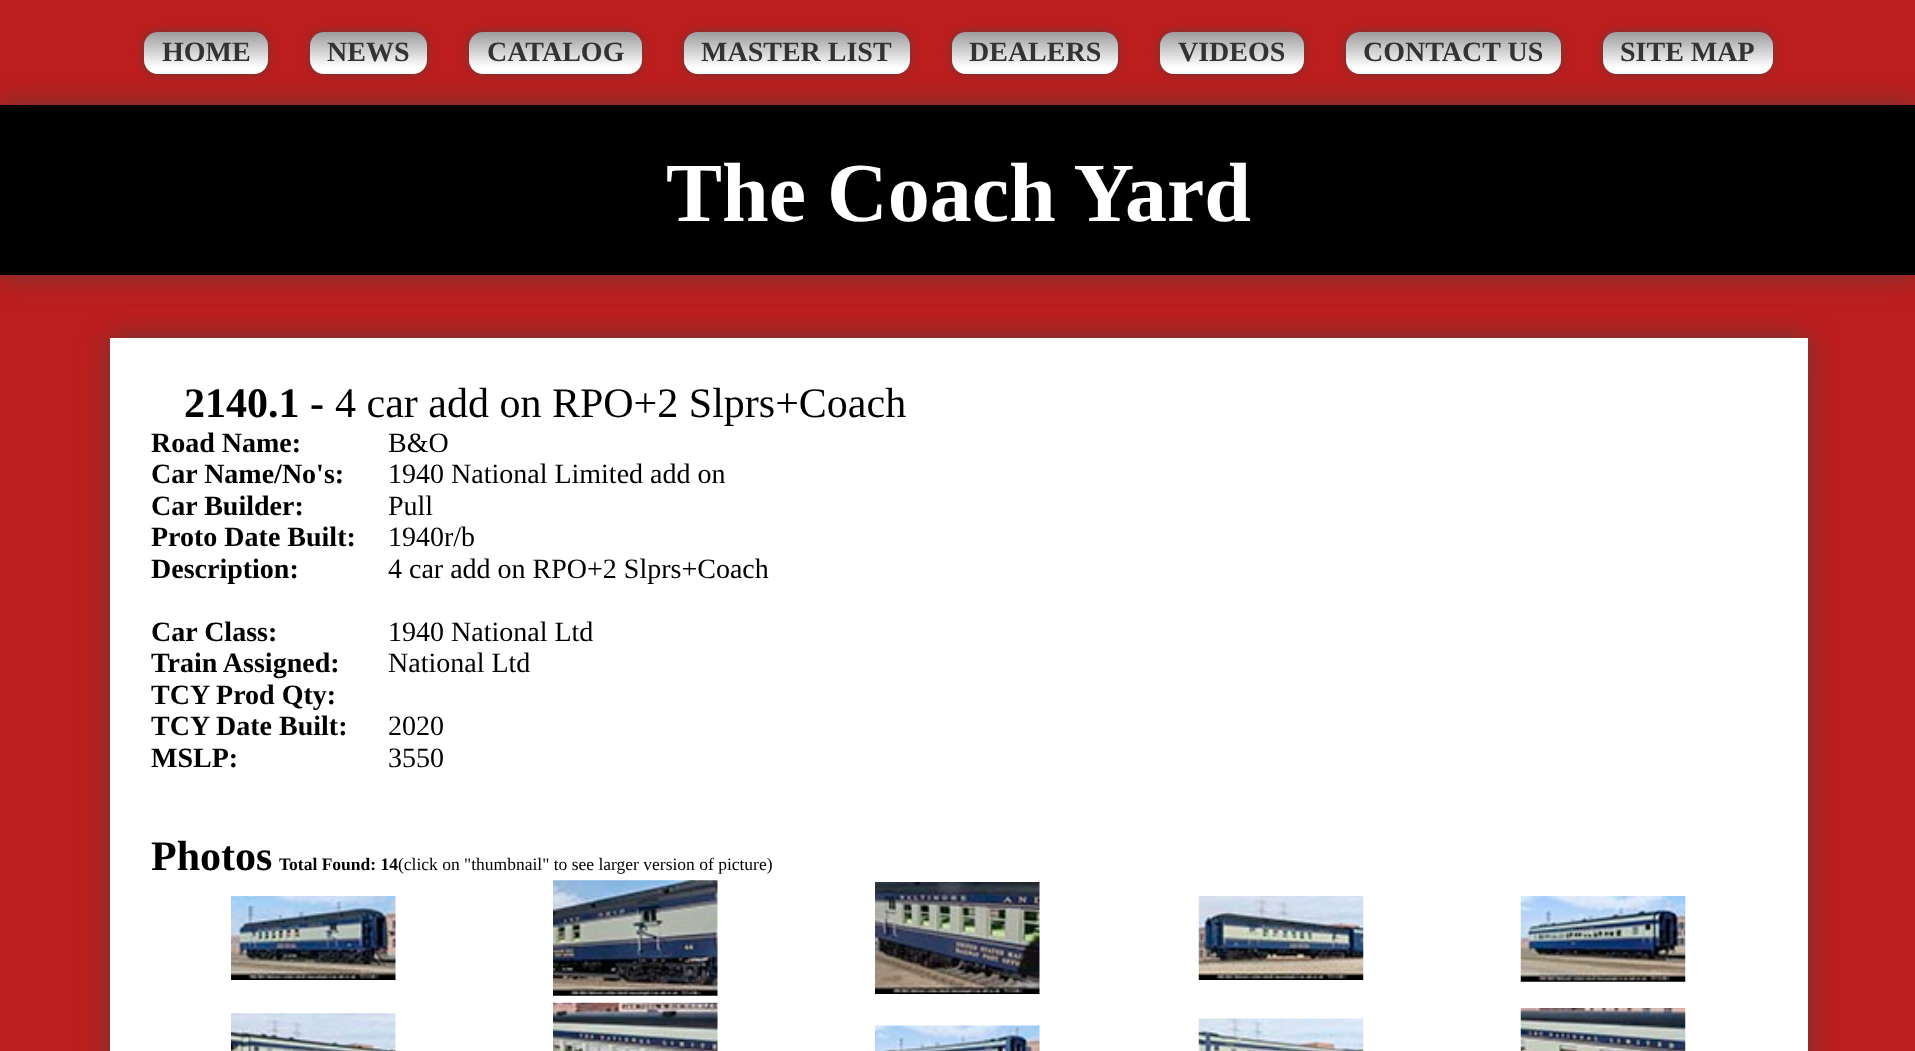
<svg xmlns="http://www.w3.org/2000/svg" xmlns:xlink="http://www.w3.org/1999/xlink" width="1915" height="1051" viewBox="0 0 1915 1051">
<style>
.cls-1{font:bold 28px Liberation Serif;fill:#333333}
.cls-2{font:bold 84px Liberation Serif;fill:#ffffff}
.cls-3{font:bold 42px Liberation Serif;fill:#000000}
.cls-4{font:42px Liberation Serif;fill:#000000}
.cls-5{font:bold 28px Liberation Serif;fill:#000000}
.cls-6{font:28px Liberation Serif;fill:#000000}
.cls-7{font:bold 17.5px Liberation Serif;fill:#000000}
.cls-8{font:17.5px Liberation Serif;fill:#000000}
</style>
<defs>
<linearGradient id="g1" gradientUnits="userSpaceOnUse" x1="206" y1="31" x2="206" y2="74"><stop offset="0" stop-color="#999999"/><stop offset="0.85" stop-color="#ffffff"/></linearGradient>
<linearGradient id="g2" gradientUnits="userSpaceOnUse" x1="368" y1="31" x2="368" y2="74"><stop offset="0" stop-color="#999999"/><stop offset="0.85" stop-color="#ffffff"/></linearGradient>
<linearGradient id="g3" gradientUnits="userSpaceOnUse" x1="556" y1="31" x2="556" y2="74"><stop offset="0" stop-color="#999999"/><stop offset="0.85" stop-color="#ffffff"/></linearGradient>
<linearGradient id="g4" gradientUnits="userSpaceOnUse" x1="797" y1="31" x2="797" y2="74"><stop offset="0" stop-color="#999999"/><stop offset="0.85" stop-color="#ffffff"/></linearGradient>
<linearGradient id="g5" gradientUnits="userSpaceOnUse" x1="1035" y1="31" x2="1035" y2="74"><stop offset="0" stop-color="#999999"/><stop offset="0.85" stop-color="#ffffff"/></linearGradient>
<linearGradient id="g6" gradientUnits="userSpaceOnUse" x1="1232" y1="31" x2="1232" y2="74"><stop offset="0" stop-color="#999999"/><stop offset="0.85" stop-color="#ffffff"/></linearGradient>
<linearGradient id="g7" gradientUnits="userSpaceOnUse" x1="1453" y1="31" x2="1453" y2="74"><stop offset="0" stop-color="#999999"/><stop offset="0.85" stop-color="#ffffff"/></linearGradient>
<linearGradient id="g8" gradientUnits="userSpaceOnUse" x1="1688" y1="31" x2="1688" y2="74"><stop offset="0" stop-color="#999999"/><stop offset="0.85" stop-color="#ffffff"/></linearGradient>
</defs>
<rect width="100%" height="100%" fill="#bc1e1d"/>
<rect fill="#464646" fill-opacity="0.7" filter="blur(5px)" x="144" y="32" width="124" height="42" rx="14"/>
<rect fill="#464646" fill-opacity="0.7" filter="blur(14px)" x="0" y="105" width="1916" height="170"/>
<rect fill="url(#g1)" x="144" y="32" width="124" height="42" rx="14"/>
<rect fill="#464646" fill-opacity="0.7" filter="blur(5px)" x="310" y="32" width="117" height="42" rx="14"/>
<rect fill="url(#g2)" x="310" y="32" width="117" height="42" rx="14"/>
<rect fill="#464646" fill-opacity="0.7" filter="blur(5px)" x="469" y="32" width="173" height="42" rx="14"/>
<rect fill="url(#g3)" x="469" y="32" width="173" height="42" rx="14"/>
<rect fill="#464646" fill-opacity="0.7" filter="blur(5px)" x="684" y="32" width="226" height="42" rx="14"/>
<rect fill="url(#g4)" x="684" y="32" width="226" height="42" rx="14"/>
<rect fill="#464646" fill-opacity="0.7" filter="blur(5px)" x="952" y="32" width="166" height="42" rx="14"/>
<rect fill="url(#g5)" x="952" y="32" width="166" height="42" rx="14"/>
<rect fill="#464646" fill-opacity="0.7" filter="blur(5px)" x="1160" y="32" width="144" height="42" rx="14"/>
<rect fill="url(#g6)" x="1160" y="32" width="144" height="42" rx="14"/>
<rect fill="#464646" fill-opacity="0.7" filter="blur(5px)" x="1346" y="32" width="215" height="42" rx="14"/>
<rect fill="url(#g7)" x="1346" y="32" width="215" height="42" rx="14"/>
<rect fill="#464646" fill-opacity="0.7" filter="blur(5px)" x="1603" y="32" width="170" height="42" rx="14"/>
<rect fill="url(#g8)" x="1603" y="32" width="170" height="42" rx="14"/>
<rect fill="#000000" x="0" y="105" width="1915" height="170"/>
<rect fill="#464646" fill-opacity="0.7" filter="blur(14px)" x="110" y="338" width="1698" height="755"/>
<rect fill="#ffffff" x="110" y="338" width="1698" height="713"/>
<image xlink:href="image0.png" x="231" y="896" width="165" height="84"/>
<image xlink:href="image1.png" x="553" y="880" width="165" height="116"/>
<image xlink:href="image2.png" x="875" y="882" width="165" height="112"/>
<image xlink:href="image3.png" x="1198" y="896" width="166" height="84"/>
<image xlink:href="image4.png" x="1520" y="896" width="166" height="86"/>
<image xlink:href="image5.png" x="231" y="1013" width="165" height="38"/>
<image xlink:href="image6.png" x="553" y="1002" width="165" height="49"/>
<image xlink:href="image7.png" x="875" y="1025" width="165" height="26"/>
<image xlink:href="image8.png" x="1198" y="1018" width="166" height="33"/>
<image xlink:href="image9.png" x="1520" y="1008" width="166" height="43"/>
<text class="cls-1" x="162" y="61">HOME</text>
<text class="cls-1" x="327" y="61">NEWS</text>
<text class="cls-1" x="487" y="61">CATALOG</text>
<text class="cls-1" x="701" y="61">MASTER LIST</text>
<text class="cls-1" x="969" y="61">DEALERS</text>
<text class="cls-1" x="1178" y="61">VIDEOS</text>
<text class="cls-1" x="1363" y="61">CONTACT US</text>
<text class="cls-1" x="1620" y="61">SITE MAP</text>
<text class="cls-2" x="666" y="221">The Coach Yard</text>
<text class="cls-3" x="184" y="417">2140.1 -</text>
<text class="cls-4" x="335" y="417">4 car add on RPO+2 Slprs+Coach</text>
<text class="cls-5" x="151" y="452">Road Name:</text>
<text class="cls-6" x="388" y="452">B&amp;O</text>
<text class="cls-5" x="151" y="483">Car Name/No's:</text>
<text class="cls-6" x="388" y="483">1940 National Limited add on</text>
<text class="cls-5" x="151" y="515">Car Builder:</text>
<text class="cls-6" x="388" y="515">Pull</text>
<text class="cls-5" x="151" y="546">Proto Date Built:</text>
<text class="cls-6" x="388" y="546">1940r/b</text>
<text class="cls-5" x="151" y="578">Description:</text>
<text class="cls-6" x="388" y="578">4 car add on RPO+2 Slprs+Coach</text>
<text class="cls-5" x="151" y="641">Car Class:</text>
<text class="cls-6" x="388" y="641">1940 National Ltd</text>
<text class="cls-5" x="151" y="672">Train Assigned:</text>
<text class="cls-6" x="388" y="672">National Ltd</text>
<text class="cls-5"><tspan x="151" y="704">TCY Prod Qty:</tspan><tspan x="151" y="735">TCY Date Built:</tspan></text>
<text class="cls-6" x="388" y="735">2020</text>
<text class="cls-5" x="151" y="767">MSLP:</text>
<text class="cls-6" x="388" y="767">3550</text>
<text class="cls-3" x="151" y="870">Photos</text>
<text class="cls-7" x="279" y="870">Total Found: 14</text>
<text class="cls-8" x="398" y="870">(click on "thumbnail" to see larger version of picture)</text>
</svg>
